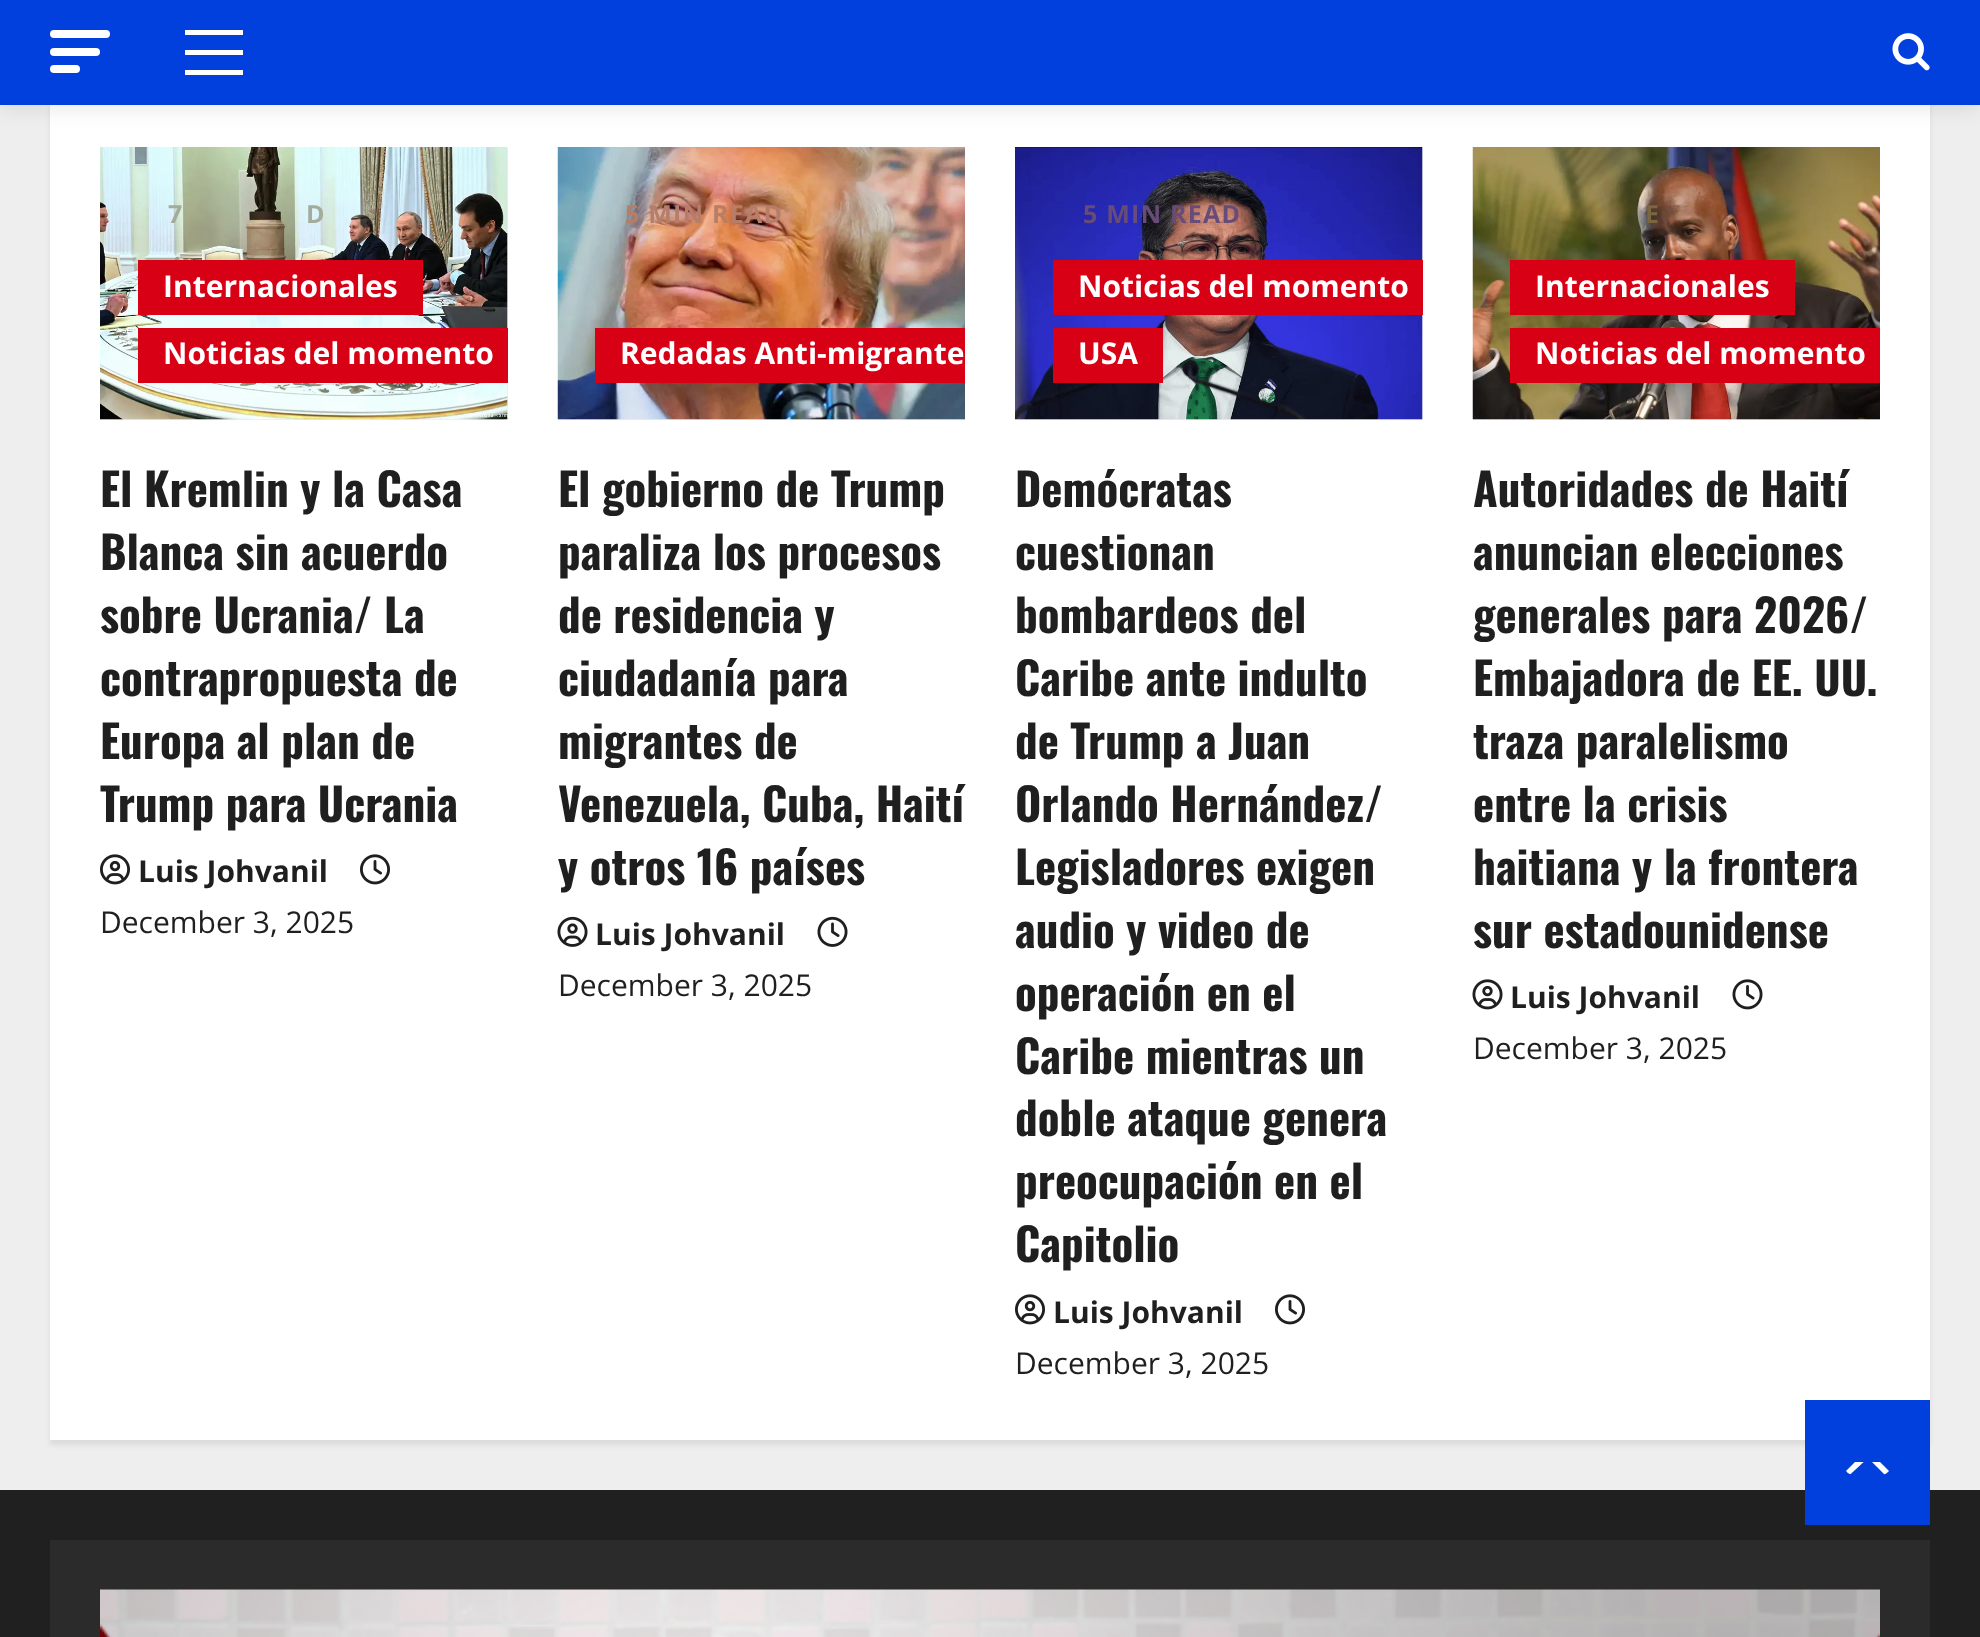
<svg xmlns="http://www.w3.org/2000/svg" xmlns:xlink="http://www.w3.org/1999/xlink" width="1980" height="1637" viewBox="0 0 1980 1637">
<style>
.cls-1{font:bold 25px Open Sans;letter-spacing:1.25px;fill:#a3ac9a}
.cls-2{font:bold 30px Open Sans;fill:#ffffff}
.cls-3{font:bold 45px Oswald;fill:#1f1f1f}
.cls-4{font:bold 30px Open Sans;fill:#1f1f1f}
.cls-5{font:30px Open Sans;fill:#1f1f1f}
.cls-6{font:bold 25px Open Sans;letter-spacing:1.25px;fill:#b67d68}
.cls-7{font:bold 25px Open Sans;letter-spacing:1.25px;fill:#684c78}
.cls-8{font:bold 25px Open Sans;letter-spacing:1.25px;fill:#7a663f}
</style>
<rect width="100%" height="100%" fill="#eeeeee"/>
<rect fill="#000000" fill-opacity="0.08" filter="blur(2.5px)" x="50" y="-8" width="1880" height="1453"/>
<rect fill="#ffffff" x="50" y="105" width="1880" height="1335"/>
<rect fill="#000000" fill-opacity="0.08" filter="blur(10px)" x="0" y="5" width="1980" height="105"/>
<rect fill="#0140dd" x="0" y="0" width="1980" height="105"/>
<rect fill="#ffffff" x="50" y="30" width="60" height="8" rx="4"/>
<rect fill="#ffffff" x="50" y="48" width="50" height="8" rx="4"/>
<rect fill="#ffffff" x="50" y="65" width="30" height="8" rx="4"/>
<rect fill="#ffffff" x="185" y="50" width="58" height="5"/>
<rect fill="#ffffff" x="185" y="30" width="58" height="5"/>
<rect fill="#ffffff" x="185" y="70" width="58" height="5"/>
<image xlink:href="image0.png" x="1892" y="33" width="38" height="38"/>
<rect fill="#ececec" x="100" y="148" width="408" height="272"/>
<image xlink:href="image1.png" x="100" y="147" width="408" height="273"/>
<rect fill="#d70015" x="138" y="260" width="285" height="55"/>
<rect fill="#d70015" x="138" y="328" width="370" height="55"/>
<image xlink:href="image2.png" x="100" y="854" width="30" height="31"/>
<image xlink:href="image3.png" x="360" y="854" width="30" height="31"/>
<rect fill="#ececec" x="558" y="419" width="407" height="1"/>
<image xlink:href="image4.png" x="557" y="147" width="408" height="273"/>
<rect fill="#d70015" x="595" y="328" width="370" height="55"/>
<image xlink:href="image5.png" x="557" y="916" width="31" height="31"/>
<image xlink:href="image6.png" x="817" y="916" width="31" height="31"/>
<rect fill="#ececec" x="1015" y="148" width="408" height="272"/>
<image xlink:href="image7.png" x="1015" y="147" width="408" height="273"/>
<rect fill="#d70015" x="1053" y="260" width="370" height="55"/>
<rect fill="#d70015" x="1053" y="328" width="110" height="55"/>
<image xlink:href="image2.png" x="1015" y="1294" width="30" height="31"/>
<image xlink:href="image3.png" x="1275" y="1294" width="30" height="31"/>
<rect fill="#ececec" x="1473" y="419" width="407" height="1"/>
<image xlink:href="image8.png" x="1472" y="147" width="408" height="273"/>
<rect fill="#d70015" x="1510" y="260" width="285" height="55"/>
<rect fill="#d70015" x="1510" y="328" width="370" height="55"/>
<image xlink:href="image9.png" x="1472" y="979" width="31" height="31"/>
<image xlink:href="image10.png" x="1732" y="979" width="31" height="31"/>
<rect fill="#202020" x="0" y="1490" width="1980" height="147"/>
<rect fill="#2b2b2b" x="50" y="1540" width="1880" height="97"/>
<image xlink:href="image11.png" x="100" y="1589" width="1780" height="48"/>
<rect fill="#0140dd" x="1805" y="1400" width="125" height="125"/>
<path fill="#ffffff" d="M1855 1475H1880C1884 1475 1886 1474 1889 1471L1880 1462H1855L1846 1471C1848 1474 1852 1475 1855 1475Z"/>
<path fill="#0140dd" d="M1892 1482H1842L1868 1458Z"/>
<text class="cls-1" x="168" y="223">7</text>
<text class="cls-1" x="306" y="223">D</text>
<text class="cls-2" x="163" y="297">Internacionales</text>
<text class="cls-2" x="163" y="364">Noticias del momento</text>
<text class="cls-3"><tspan x="100" y="507">El Kremlin y la Casa</tspan><tspan x="100" y="570">Blanca sin acuerdo</tspan><tspan x="100" y="633">sobre Ucrania/ La</tspan><tspan x="100" y="696">contrapropuesta de</tspan><tspan x="100" y="759">Europa al plan de</tspan><tspan x="100" y="822">Trump para Ucrania</tspan></text>
<text class="cls-4" x="138" y="882">Luis Johvanil</text>
<text class="cls-5" x="100" y="933">December 3, 2025</text>
<text class="cls-6" x="625" y="223">5 MIN READ</text>
<text class="cls-2" x="620" y="364">Redadas Anti-migrante</text>
<text class="cls-3"><tspan x="558" y="507">El gobierno de Trump</tspan><tspan x="558" y="570">paraliza los procesos</tspan><tspan x="558" y="633">de residencia y</tspan><tspan x="558" y="696">ciudadanía para</tspan><tspan x="558" y="759">migrantes de</tspan><tspan x="558" y="822">Venezuela, Cuba, Haití</tspan><tspan x="558" y="885">y otros 16 países</tspan></text>
<text class="cls-4" x="595" y="945">Luis Johvanil</text>
<text class="cls-5" x="558" y="996">December 3, 2025</text>
<text class="cls-7" x="1083" y="223">5 MIN READ</text>
<text class="cls-2" x="1078" y="297">Noticias del momento</text>
<text class="cls-2" x="1078" y="364">USA</text>
<text class="cls-3"><tspan x="1015" y="507">Demócratas</tspan><tspan x="1015" y="570">cuestionan</tspan><tspan x="1015" y="633">bombardeos del</tspan><tspan x="1015" y="696">Caribe ante indulto</tspan><tspan x="1015" y="759">de Trump a Juan</tspan><tspan x="1015" y="822">Orlando Hernández/</tspan><tspan x="1015" y="885">Legisladores exigen</tspan><tspan x="1015" y="948">audio y video de</tspan><tspan x="1015" y="1011">operación en el</tspan><tspan x="1015" y="1074">Caribe mientras un</tspan><tspan x="1015" y="1136">doble ataque genera</tspan><tspan x="1015" y="1199">preocupación en el</tspan><tspan x="1015" y="1262">Capitolio</tspan></text>
<text class="cls-4" x="1053" y="1323">Luis Johvanil</text>
<text class="cls-5" x="1015" y="1374">December 3, 2025</text>
<text class="cls-8" x="1645" y="223">E</text>
<text class="cls-2" x="1535" y="297">Internacionales</text>
<text class="cls-2" x="1535" y="364">Noticias del momento</text>
<text class="cls-3"><tspan x="1473" y="507">Autoridades de Haití</tspan><tspan x="1473" y="570">anuncian elecciones</tspan><tspan x="1473" y="633">generales para 2026/</tspan><tspan x="1473" y="696">Embajadora de EE. UU.</tspan><tspan x="1473" y="759">traza paralelismo</tspan><tspan x="1473" y="822">entre la crisis</tspan><tspan x="1473" y="885">haitiana y la frontera</tspan><tspan x="1473" y="948">sur estadounidense</tspan></text>
<text class="cls-4" x="1510" y="1008">Luis Johvanil</text>
<text class="cls-5" x="1473" y="1059">December 3, 2025</text>
</svg>
